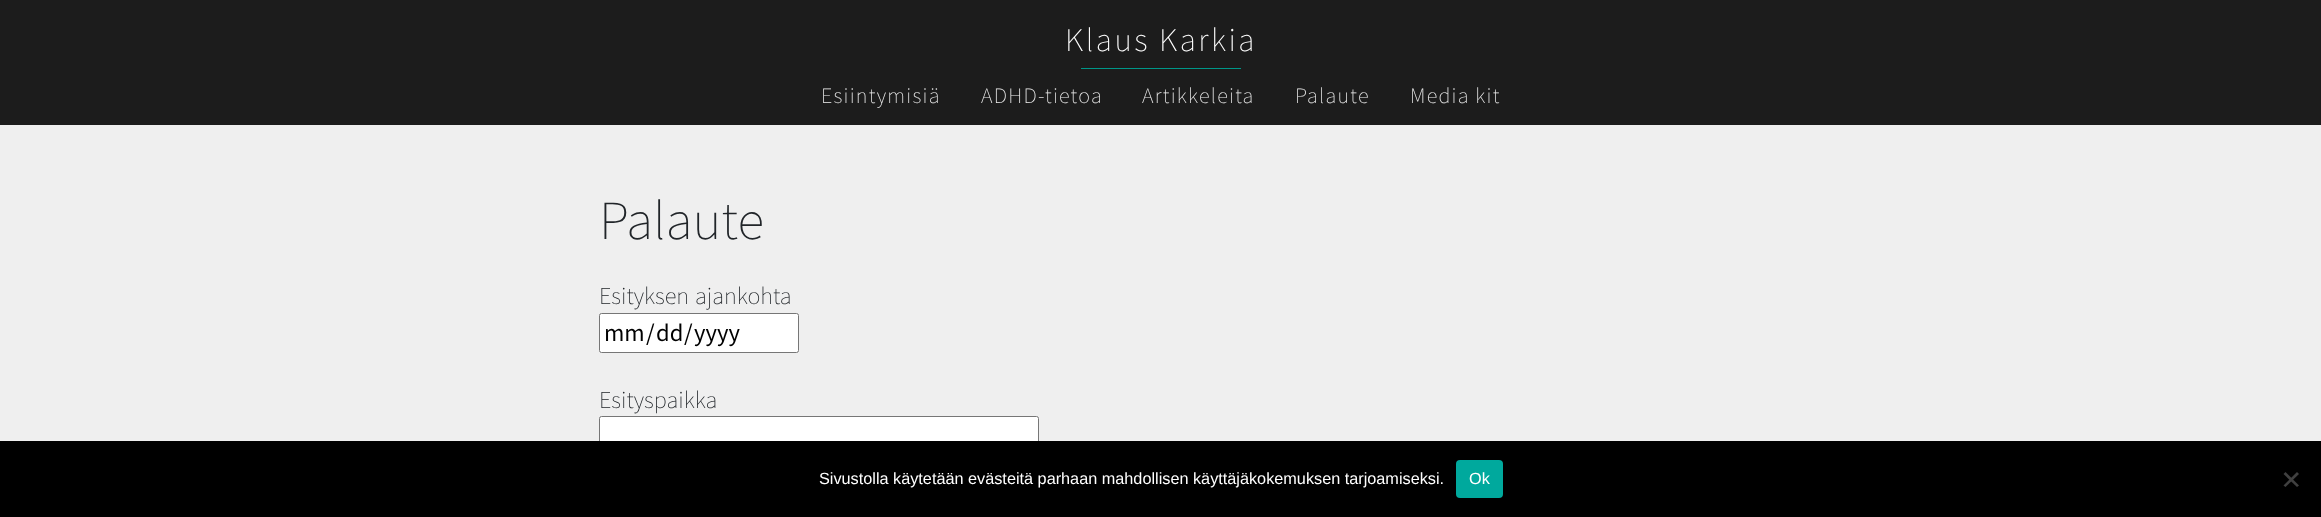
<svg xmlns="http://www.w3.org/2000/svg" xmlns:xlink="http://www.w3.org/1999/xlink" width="2321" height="517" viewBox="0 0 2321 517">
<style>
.cls-1{font:100 30px Noto Sans JP;letter-spacing:2.5px;fill:#ffffff}
.cls-2{font:100 20px Noto Sans JP;letter-spacing:1.25px;fill:#efefef}
.cls-3{font:100 50px Noto Sans JP;fill:#212529}
.cls-4{font:100 22px Noto Sans JP;fill:#212529}
.cls-5{font:22px Noto Sans JP;fill:#000000}
.cls-6{font:16.25px Liberation Sans;fill:#ffffff}
</style>
<rect width="100%" height="100%" fill="#efefef"/>
<rect fill="#1c1c1c" x="0" y="0" width="2321" height="125"/>
<rect fill="#009688" x="1081" y="68" width="160" height="1"/>
<rect fill="#ffffff" stroke="#767676" x="599.5" y="313.5" width="199" height="39" rx="2"/>
<rect fill="#ffffff" stroke="#767676" x="599.5" y="416.5" width="439" height="39" rx="2"/>
<rect fill="#000000" x="0" y="441" width="2321" height="76"/>
<rect fill="#00a99d" x="1456" y="460" width="47" height="38" rx="4"/>
<path fill="#404040" d="M2297 472L2299 474L2285.5 487L2283.5 485.5Z"/>
<path fill="#404040" d="M2283.5 474L2285.5 472L2299 485.5L2297 487Z"/>
<text class="cls-1" x="1065" y="51">Klaus Karkia</text>
<text class="cls-2" x="821" y="103">Esiintymisiä</text>
<text class="cls-2" x="981" y="103">ADHD-tietoa</text>
<text class="cls-2" x="1142" y="103">Artikkeleita</text>
<text class="cls-2" x="1295" y="103">Palaute</text>
<text class="cls-2" x="1410" y="103">Media kit</text>
<text class="cls-3" x="599" y="239">Palaute</text>
<text class="cls-4" x="599" y="304" word-spacing="1">Esityksen ajankohta</text>
<text class="cls-5" x="604" y="341">mm</text>
<text class="cls-5" x="646" y="341">/</text>
<text class="cls-5" x="656" y="341">dd</text>
<text class="cls-5" x="684" y="341">/</text>
<text class="cls-5" x="694" y="341">yyyy</text>
<text class="cls-4" x="599" y="408">Esityspaikka</text>
<text class="cls-6" x="819" y="484">Sivustolla käytetään evästeitä parhaan mahdollisen käyttäjäkokemuksen tarjoamiseksi.</text>
<text class="cls-6" x="1469" y="484">Ok</text>
</svg>
